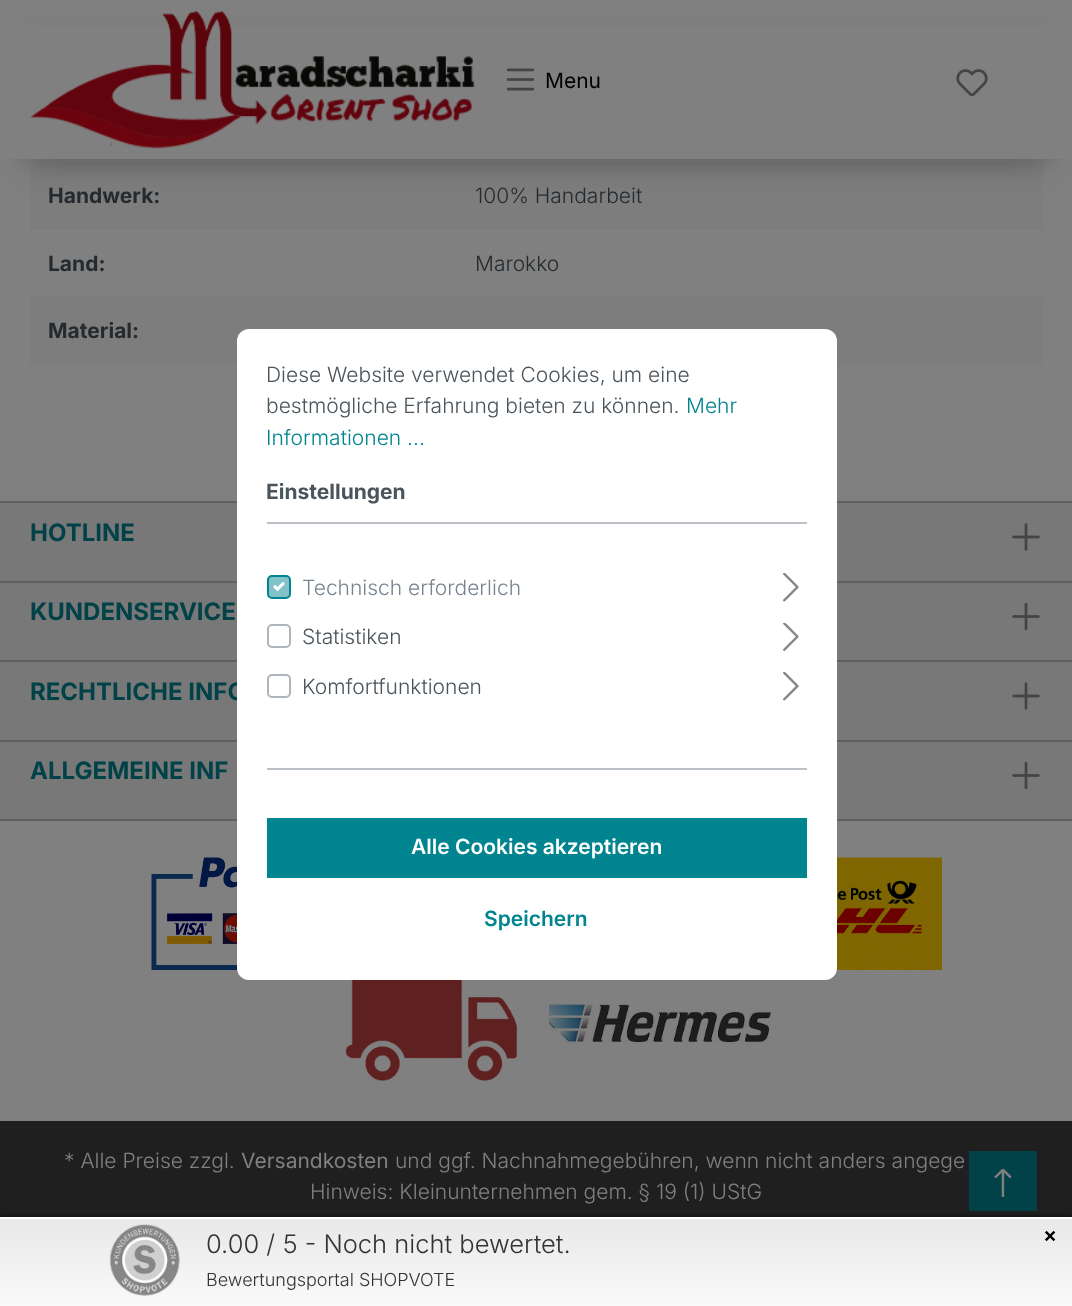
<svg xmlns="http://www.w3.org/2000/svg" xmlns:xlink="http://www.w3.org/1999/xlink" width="1072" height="1306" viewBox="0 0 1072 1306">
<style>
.cls-1{font:21px Inter;fill:#000000}
.cls-2{font:bold 21px Inter;fill:#252a2e}
.cls-3{font:300 21px Inter;fill:#252a2e}
.cls-4{font:bold 24px Inter;fill:#004248}
.cls-5{font:300 21px Inter;fill:#4a545b}
.cls-6{font:300 21px Inter;fill:#798490}
.cls-7{font:bold 21px Inter;fill:#4a545b}
.cls-8{font:600 21px Inter;fill:#008490}
.cls-9{font:600 21px Inter;fill:#ffffff}
.cls-10{font:300 21px Inter;fill:#008490}
.cls-11{font:300 21px Inter;fill:#808080}
.cls-12{font:21px Inter;fill:#808080}
.cls-13{font:300 25.5px Inter;fill:#333333}
.cls-14{font:300 18px Inter;fill:#333333}
.cls-15{font:600 21px Inter;fill:#000000}
</style>
<defs>
<linearGradient id="g1" gradientUnits="userSpaceOnUse" x1="536" y1="1218" x2="536" y2="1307"><stop offset="0" stop-color="#f0f0f0"/><stop offset="0" stop-color="#e8e8e8"/><stop offset="1" stop-color="#fafafa"/></linearGradient>
</defs>
<rect width="100%" height="100%" fill="#808080"/>
<rect fill="#7d7d7d" x="30" y="162" width="1013" height="68"/>
<rect fill="#000000" fill-opacity="0.35" filter="blur(16px)" x="26" y="51" width="1021" height="108"/>
<rect fill="#808080" x="1" y="26" width="1071" height="133"/>
<image xlink:href="image0.png" x="30" y="11" width="445" height="138"/>
<image xlink:href="image1.png" x="506" y="68" width="29" height="23"/>
<image xlink:href="image2.png" x="956" y="69" width="32" height="28"/>
<rect fill="#7d7d7d" x="30" y="297" width="1013" height="68"/>
<rect fill="#5e6164" x="0" y="501" width="1072" height="2"/>
<rect fill="#787878" x="0" y="503" width="1072" height="316"/>
<rect fill="#5e6164" x="0" y="581" width="1072" height="2"/>
<image xlink:href="image6.png" x="1012" y="523" width="28" height="28"/>
<rect fill="#5e6164" x="0" y="660" width="1072" height="2"/>
<image xlink:href="image7.png" x="1012" y="602" width="28" height="29"/>
<rect fill="#5e6164" x="0" y="740" width="1072" height="2"/>
<image xlink:href="image6.png" x="1012" y="682" width="28" height="28"/>
<rect fill="#5e6164" x="0" y="819" width="1072" height="2"/>
<image xlink:href="image7.png" x="1012" y="761" width="28" height="29"/>
<image xlink:href="image8.png" x="151" y="857" width="87" height="113"/>
<image xlink:href="image9.png" x="836" y="857" width="106" height="113"/>
<image xlink:href="image10.png" x="345" y="980" width="173" height="101"/>
<image xlink:href="image11.png" x="549" y="1004" width="223" height="41"/>
<rect fill="#1f1f1f" x="0" y="1121" width="1072" height="96"/>
<rect fill="#004248" x="969" y="1151" width="68" height="60"/>
<image xlink:href="image12.png" x="994" y="1169" width="18" height="28"/>
<rect fill="#000000" fill-opacity="0.35" filter="blur(1.5px)" x="2" y="1215" width="1069" height="87"/>
<rect fill="url(#g1)" x="0" y="1219" width="1072" height="87"/>
<rect fill="#ffffff" x="0" y="1217" width="1072" height="2"/>
<image xlink:href="image13.png" x="109" y="1224" width="71" height="72"/>
<text class="cls-1" x="545" y="88">Menu</text>
<text class="cls-2" x="48" y="203">Handwerk:</text>
<text class="cls-3" x="475" y="203">100% Handarbeit</text>
<text class="cls-2" x="48" y="271">Land:</text>
<text class="cls-3" x="475" y="271">Marokko</text>
<text class="cls-2" x="48" y="338">Material:</text>
<text class="cls-4" x="30" y="541">HOTLINE</text>
<text class="cls-4" x="30" y="620">KUNDENSERVICE</text>
<text class="cls-4" x="30" y="700">RECHTLICHE INFO</text>
<rect fill="#ffffff" x="237" y="329" width="600" height="651" rx="12"/>
<image xlink:href="image4.png" x="783" y="672" width="16" height="29"/>
<rect fill="none" stroke="#adb5bd" stroke-width="2" x="268" y="675" width="22" height="22" rx="4"/>
<text class="cls-5" x="302" y="694">Komfortfunktionen</text>
<image xlink:href="image5.png" x="783" y="623" width="16" height="28"/>
<rect fill="none" stroke="#adb5bd" stroke-width="2" x="268" y="625" width="22" height="22" rx="4"/>
<text class="cls-5" x="302" y="644">Statistiken</text>
<image xlink:href="image4.png" x="783" y="573" width="16" height="29"/>
<rect fill="#80c2c8" stroke="#008490" stroke-width="2" x="268" y="576" width="22" height="22" rx="4"/>
<image xlink:href="image3.png" x="273" y="581" width="12" height="11"/>
<text class="cls-6" x="302" y="595">Technisch erforderlich</text>
<text class="cls-7" x="266" y="499">Einstellungen</text>
<text class="cls-8" x="484" y="926">Speichern</text>
<rect fill="#008490" x="267" y="818" width="540" height="60"/>
<text class="cls-9" x="411" y="854">Alle Cookies akzeptieren</text>
<text class="cls-10" x="266" y="445">Informationen ...</text>
<text class="cls-10" x="686" y="413">Mehr</text>
<text class="cls-5" x="266" y="413">bestmögliche Erfahrung bieten zu können.</text>
<text class="cls-5" x="266" y="382">Diese Website verwendet Cookies, um eine</text>
<rect fill="#bcc1c7" x="267" y="768" width="540" height="2"/>
<rect fill="#bcc1c7" x="267" y="522" width="540" height="2"/>
<text class="cls-4" x="30" y="779">ALLGEMEINE INF</text>
<text class="cls-11" x="64" y="1168">* Alle Preise zzgl.</text>
<text class="cls-12" x="241" y="1168">Versandkosten</text>
<text class="cls-11" x="395" y="1168">und ggf. Nachnahmegebühren, wenn nicht anders angege</text>
<text class="cls-11" x="310" y="1199">Hinweis: Kleinunternehmen gem. § 19 (1) UStG</text>
<text class="cls-13" x="206" y="1253">0.00 / 5 - Noch nicht bewertet.</text>
<text class="cls-14" x="206" y="1286">Bewertungsportal SHOPVOTE</text>
<text class="cls-15" x="1043" y="1242">×</text>
</svg>
